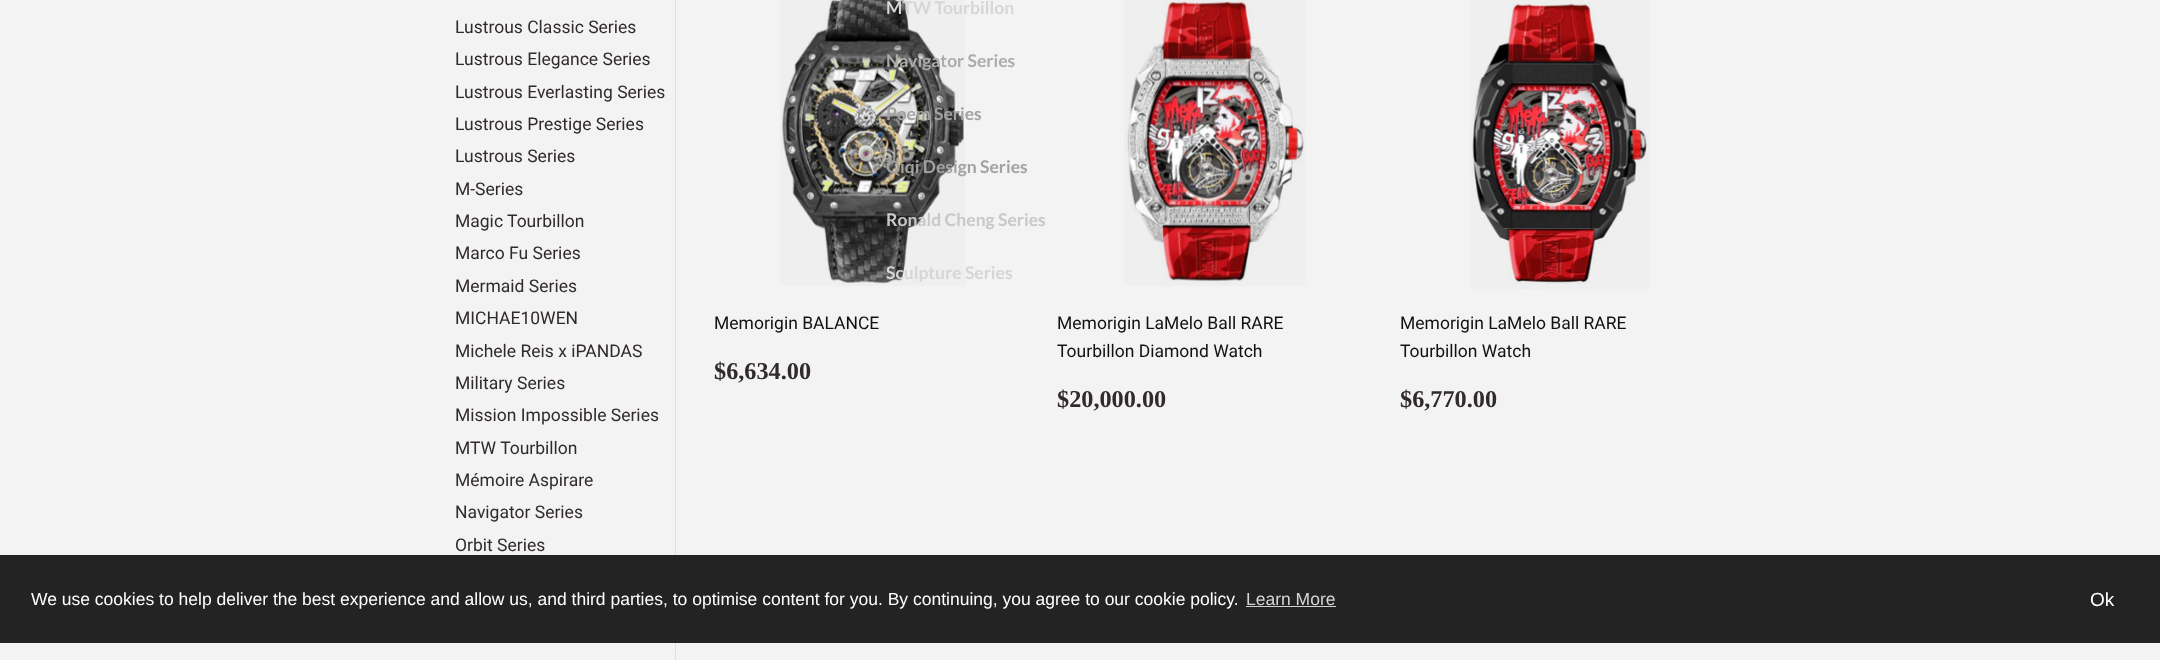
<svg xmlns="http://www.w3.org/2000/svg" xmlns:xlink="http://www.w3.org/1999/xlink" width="2160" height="660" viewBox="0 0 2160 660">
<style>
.cls-1{font:bold 17.5px Lato;fill:#d6d6d6}
.cls-2{font:bold 17.5px Lato;fill:#acacab}
.cls-3{font:bold 17.5px Lato;fill:#a2a3a1}
.cls-4{font:bold 17.5px Lato;fill:#c8c8c8}
.cls-5{font:17.5px Roboto;fill:#302b2a}
.cls-6{font:17.5px Roboto;fill:#121111}
.cls-7{font:bold 24.25px Liberation Serif;fill:#302b2a}
.cls-8{font:17.5px Liberation Sans;fill:#ffffff}
.cls-9{font:17.5px Liberation Sans;fill:#d6d6d6}
.cls-10{font:19px Liberation Sans;fill:#ffffff}
</style>
<rect width="100%" height="100%" fill="#f3f3f3"/>
<rect fill="#dedede" x="675" y="0" width="1" height="660"/>
<image xlink:href="image0.png" x="780" y="0" width="185" height="286"/>
<image xlink:href="image1.png" x="1124" y="0" width="181" height="286"/>
<image xlink:href="image2.png" x="1470" y="0" width="179" height="289"/>
<rect fill="#232323" x="0" y="555" width="2160" height="88"/>
<rect fill="#d3d3d3" x="1246" y="606" width="90" height="1"/>
<text class="cls-1" x="886" y="14">MTW Tourbillon</text>
<text class="cls-2" x="886" y="67">Navigator Series</text>
<text class="cls-3" x="886" y="120">Poem Series</text>
<text class="cls-3" x="886" y="173">Qiqi Design Series</text>
<text class="cls-4" x="886" y="226">Ronald Cheng Series</text>
<text class="cls-1" x="886" y="279">Sculpture Series</text>
<text class="cls-5"><tspan x="455" y="33">Lustrous Classic Series</tspan><tspan x="455" y="65">Lustrous Elegance Series</tspan><tspan x="455" y="98">Lustrous Everlasting Series</tspan><tspan x="455" y="130">Lustrous Prestige Series</tspan><tspan x="455" y="162">Lustrous Series</tspan><tspan x="455" y="195">M-Series</tspan><tspan x="455" y="227">Magic Tourbillon</tspan><tspan x="455" y="259">Marco Fu Series</tspan><tspan x="455" y="292">Mermaid Series</tspan><tspan x="455" y="324">MICHAE10WEN</tspan><tspan x="455" y="357">Michele Reis x iPANDAS</tspan><tspan x="455" y="389">Military Series</tspan><tspan x="455" y="421">Mission Impossible Series</tspan><tspan x="455" y="454">MTW Tourbillon</tspan><tspan x="455" y="486">Mémoire Aspirare</tspan><tspan x="455" y="518">Navigator Series</tspan><tspan x="455" y="551">Orbit Series</tspan></text>
<text class="cls-6" x="714" y="329">Memorigin BALANCE</text>
<text class="cls-7" x="714" y="379">$6,634.00</text>
<text class="cls-6"><tspan x="1057" y="329">Memorigin LaMelo Ball RARE</tspan><tspan x="1057" y="357">Tourbillon Diamond Watch</tspan></text>
<text class="cls-7" x="1057" y="407">$20,000.00</text>
<text class="cls-6"><tspan x="1400" y="329">Memorigin LaMelo Ball RARE</tspan><tspan x="1400" y="357">Tourbillon Watch</tspan></text>
<text class="cls-7" x="1400" y="407">$6,770.00</text>
<text class="cls-8" x="31" y="605">We use cookies to help deliver the best experience and allow us, and third parties, to optimise content for you. By continuing, you agree to our cookie policy.</text>
<text class="cls-9" x="1246" y="605">Learn More</text>
<text class="cls-10" x="2090" y="606">Ok</text>
</svg>
